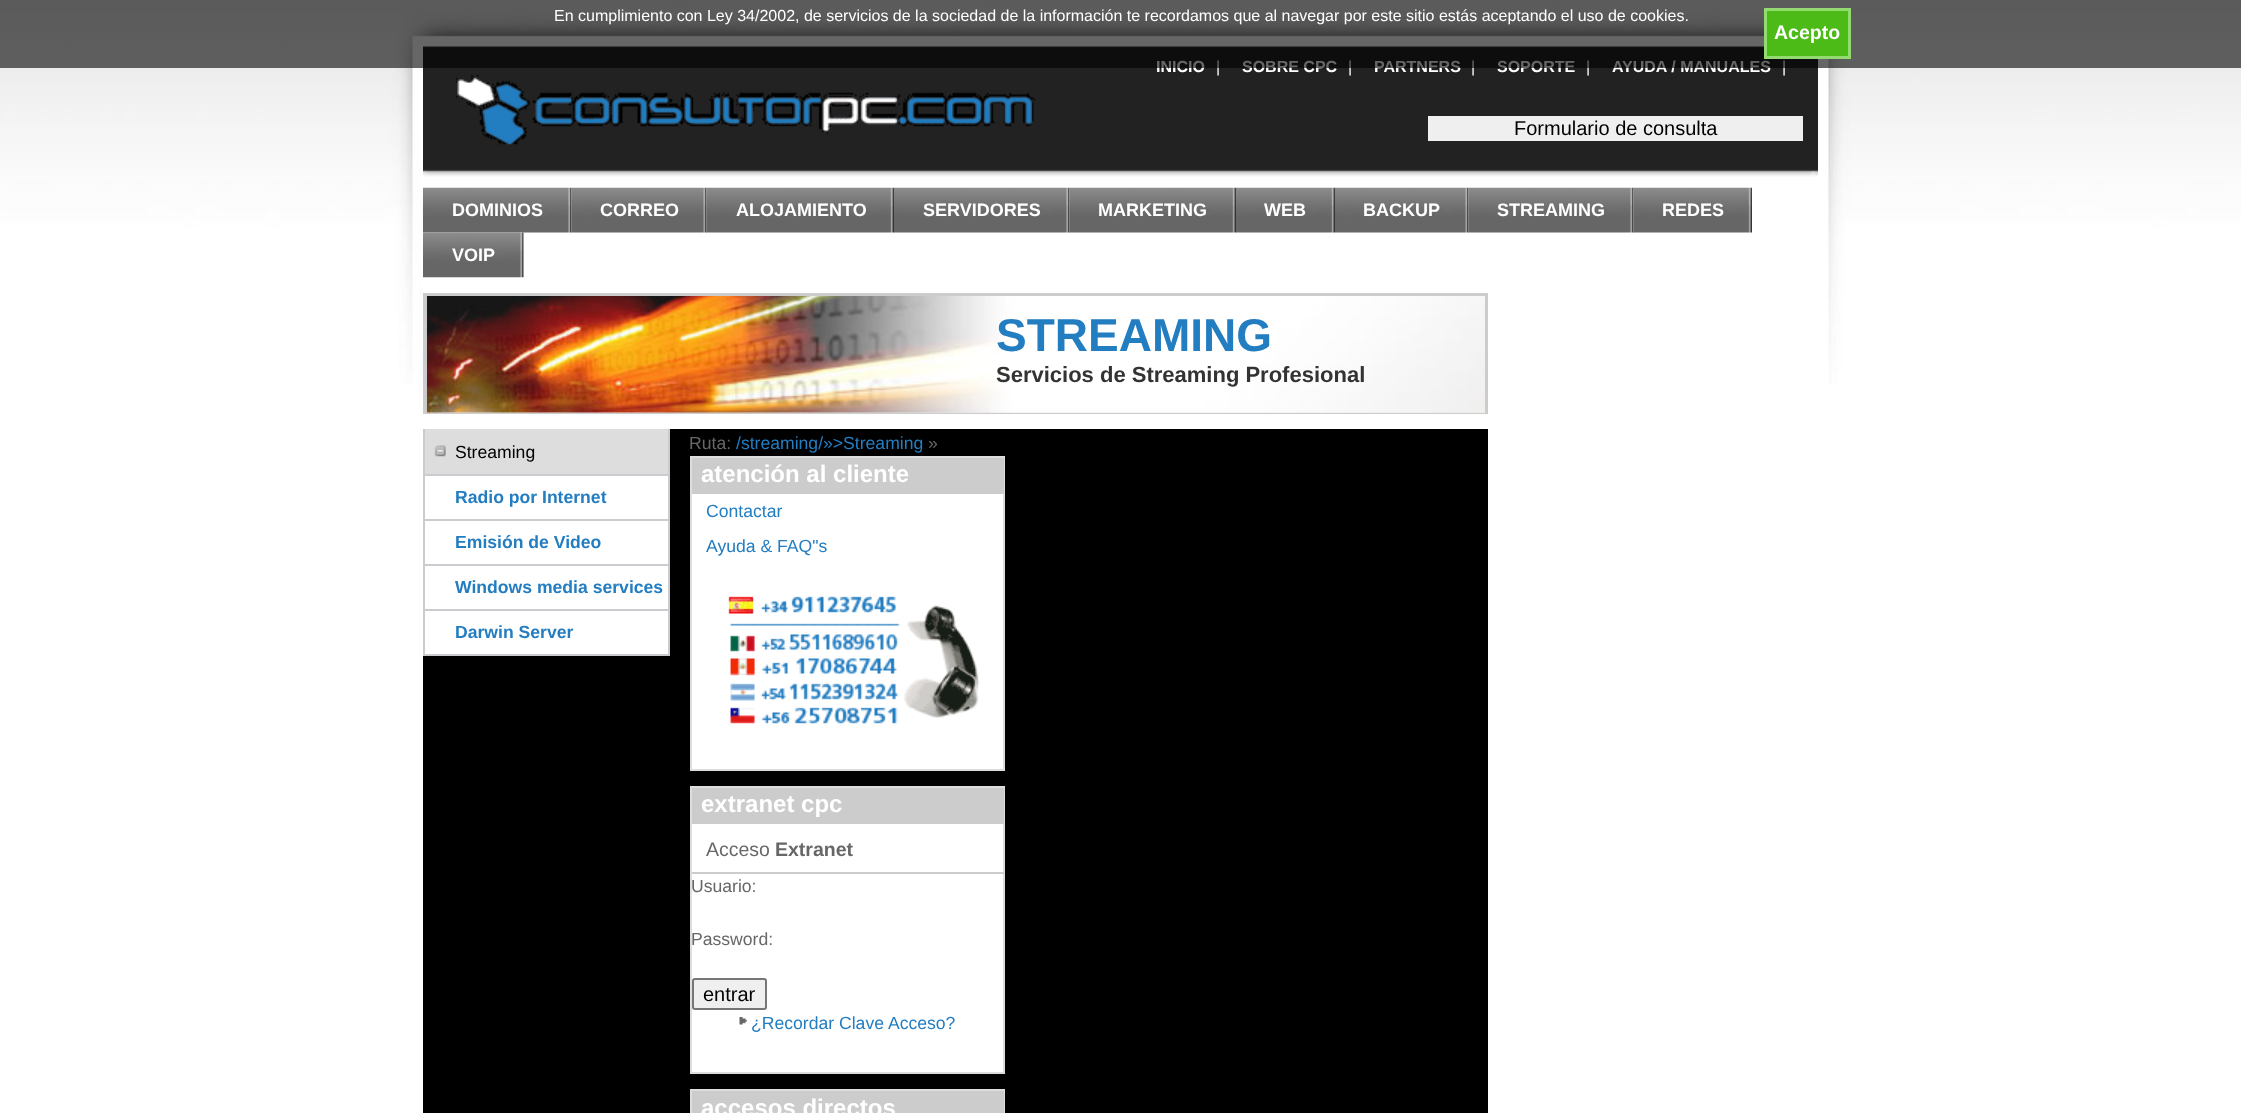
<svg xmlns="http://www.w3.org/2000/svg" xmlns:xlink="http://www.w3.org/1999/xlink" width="2241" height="1113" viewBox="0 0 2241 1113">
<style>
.cls-1{font:bold 16px Liberation Sans;fill:#ffffff}
.cls-2{font:16px Liberation Sans;letter-spacing:6px;fill:#ffffff}
.cls-3{font:bold 19.5px Liberation Sans;fill:#ffffff}
.cls-4{font:16px Liberation Sans;fill:#ffffff}
.cls-5{font:20px Liberation Sans;fill:#000000}
.cls-6{font:bold 18px Liberation Sans;fill:#ffffff}
.cls-7{font:bold 46px Liberation Sans;fill:#237dc1}
.cls-8{font:bold 22px Liberation Sans;fill:#333333}
.cls-9{font:17.6px Liberation Sans;fill:#000000}
.cls-10{font:bold 17.6px Liberation Sans;fill:#237dc1}
.cls-11{font:17.6px Liberation Sans;fill:#676767}
.cls-12{font:17.6px Liberation Sans;fill:#237dc1}
.cls-13{font:bold 24px Liberation Sans;fill:#ffffff}
.cls-14{font:19.5px Liberation Sans;fill:#676767}
.cls-15{font:bold 19.5px Liberation Sans;fill:#676767}
</style>
<defs>
<clipPath id="clip1"><rect x="425" y="294" width="1062" height="119"/></clipPath>
</defs>
<rect width="100%" height="100%" fill="#ffffff"/>
<image xlink:href="image0.png" x="0" y="0" width="2241" height="384"/>
<image xlink:href="image1.png" x="423" y="46" width="1395" height="131"/>
<rect fill="#efefef" x="1428" y="116" width="375" height="25"/>
<image xlink:href="image2.png" x="423" y="187" width="149" height="46"/>
<image xlink:href="image3.png" x="571" y="187" width="136" height="46"/>
<image xlink:href="image4.png" x="706" y="187" width="188" height="46"/>
<image xlink:href="image5.png" x="894" y="187" width="176" height="46"/>
<image xlink:href="image6.png" x="1069" y="187" width="167" height="46"/>
<image xlink:href="image7.png" x="1236" y="187" width="99" height="46"/>
<image xlink:href="image8.png" x="1335" y="187" width="134" height="46"/>
<image xlink:href="image9.png" x="1468" y="187" width="166" height="46"/>
<image xlink:href="image10.png" x="1633" y="187" width="119" height="46"/>
<image xlink:href="image11.png" x="423" y="232" width="101" height="46"/>
<rect fill="none" stroke="#cccccc" stroke-width="2" x="424" y="294" width="1063" height="119"/>
<rect fill="#e9e8e7" x="427" y="412" width="1058" height="1"/>
<image xlink:href="image12.png" x="427" y="296" width="1058" height="117"/>
<g clip-path="url(#clip1)">
<rect fill="none" stroke="#cccccc" stroke-width="2" x="426" y="295" width="1060" height="120"/>
</g>
<rect fill="#000000" x="423" y="429" width="1065" height="684"/>
<rect fill="#dddddd" x="425" y="429" width="243" height="45"/>
<image xlink:href="image13.png" x="434" y="445" width="12" height="12"/>
<rect fill="#cbccd0" x="668" y="429" width="2" height="227"/>
<rect fill="#cbccd0" x="423" y="474" width="246" height="2"/>
<rect fill="#cbccd0" x="423" y="429" width="2" height="47"/>
<rect fill="#ffffff" x="425" y="476" width="243" height="43"/>
<rect fill="#cbccd0" x="423" y="519" width="246" height="2"/>
<rect fill="#cbccd0" x="423" y="476" width="2" height="45"/>
<rect fill="#ffffff" x="425" y="521" width="243" height="43"/>
<rect fill="#cbccd0" x="423" y="564" width="246" height="2"/>
<rect fill="#cbccd0" x="423" y="521" width="2" height="45"/>
<rect fill="#ffffff" x="425" y="566" width="243" height="43"/>
<rect fill="#cbccd0" x="423" y="609" width="246" height="2"/>
<rect fill="#cbccd0" x="423" y="566" width="2" height="45"/>
<rect fill="#ffffff" x="425" y="611" width="243" height="43"/>
<rect fill="#cbccd0" x="423" y="654" width="246" height="2"/>
<rect fill="#cbccd0" x="423" y="611" width="2" height="45"/>
<rect fill="#ffffff" x="692" y="494" width="311" height="275"/>
<image xlink:href="image14.png" x="728" y="596" width="252" height="128"/>
<rect fill="none" stroke="#dddddd" stroke-width="2" x="691" y="457" width="313" height="313"/>
<rect fill="#cccccc" x="692" y="458" width="312" height="36"/>
<rect fill="#ffffff" x="692" y="824" width="311" height="248"/>
<rect fill="none" stroke="#dddddd" stroke-width="2" x="691" y="787" width="313" height="286"/>
<rect fill="#cccccc" x="692" y="788" width="312" height="36"/>
<rect fill="#cccccc" x="692" y="872" width="312" height="2"/>
<rect fill="#efefef" stroke="#767676" stroke-width="2" x="693" y="979" width="73" height="30" rx="2"/>
<image xlink:href="image15.png" x="739" y="1017" width="8" height="8"/>
<rect fill="none" stroke="#dddddd" stroke-width="2" x="691" y="1090" width="313" height="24"/>
<rect fill="#cccccc" x="692" y="1091" width="312" height="22"/>
<text class="cls-1" x="1156" y="72">INICIO</text>
<text class="cls-2" x="1216" y="72">|</text>
<text class="cls-1" x="1242" y="72">SOBRE CPC</text>
<text class="cls-2" x="1348" y="72">|</text>
<text class="cls-1" x="1374" y="72">PARTNERS</text>
<text class="cls-2" x="1471" y="72">|</text>
<text class="cls-1" x="1497" y="72">SOPORTE</text>
<text class="cls-2" x="1586" y="72">|</text>
<text class="cls-1" x="1612" y="72">AYUDA / MANUALES</text>
<text class="cls-2" x="1782" y="72">|</text>
<rect fill="#000000" fill-opacity="0.6" x="0" y="0" width="2241" height="68"/>
<rect fill="#4cbb17" stroke="#93db70" stroke-width="3" x="1765.5" y="9.5" width="84" height="48"/>
<text class="cls-3" x="1774" y="39">Acepto</text>
<text class="cls-4" x="554" y="21">En cumplimiento con Ley 34/2002, de servicios de la sociedad de la información te recordamos que al navegar por este sitio estás aceptando el uso de cookies.</text>
<text class="cls-5" x="1514" y="135">Formulario de consulta</text>
<text class="cls-6" x="452" y="216">DOMINIOS</text>
<text class="cls-6" x="600" y="216">CORREO</text>
<text class="cls-6" x="736" y="216">ALOJAMIENTO</text>
<text class="cls-6" x="923" y="216">SERVIDORES</text>
<text class="cls-6" x="1098" y="216">MARKETING</text>
<text class="cls-6" x="1264" y="216">WEB</text>
<text class="cls-6" x="1363" y="216">BACKUP</text>
<text class="cls-6" x="1497" y="216">STREAMING</text>
<text class="cls-6" x="1662" y="216">REDES</text>
<text class="cls-6" x="452" y="261">VOIP</text>
<text class="cls-7" x="996" y="351">STREAMING</text>
<text class="cls-8" x="996" y="382">Servicios de Streaming Profesional</text>
<text class="cls-9" x="455" y="458">Streaming</text>
<text class="cls-10" x="455" y="503">Radio por Internet</text>
<text class="cls-10" x="455" y="548">Emisión de Video</text>
<text class="cls-10" x="455" y="593">Windows media services</text>
<text class="cls-10" x="455" y="638">Darwin Server</text>
<text class="cls-11" x="689" y="449">Ruta:</text>
<text class="cls-12" x="736" y="449">/streaming/»&gt;Streaming</text>
<text class="cls-11" x="928" y="449">»</text>
<text class="cls-13" x="701" y="482">atención al cliente</text>
<text class="cls-12"><tspan x="706" y="517">Contactar</tspan><tspan x="706" y="552">Ayuda &amp; FAQ"s</tspan></text>
<text class="cls-13" x="701" y="812">extranet cpc</text>
<text class="cls-14" x="706" y="856">Acceso</text>
<text class="cls-15" x="775" y="856">Extranet</text>
<text class="cls-11" x="691" y="892">Usuario:</text>
<text class="cls-11" x="691" y="945">Password:</text>
<text class="cls-5" x="703" y="1001">entrar</text>
<text class="cls-12" x="751" y="1029">¿Recordar Clave Acceso?</text>
<text class="cls-13" x="701" y="1116">accesos directos</text>
</svg>
